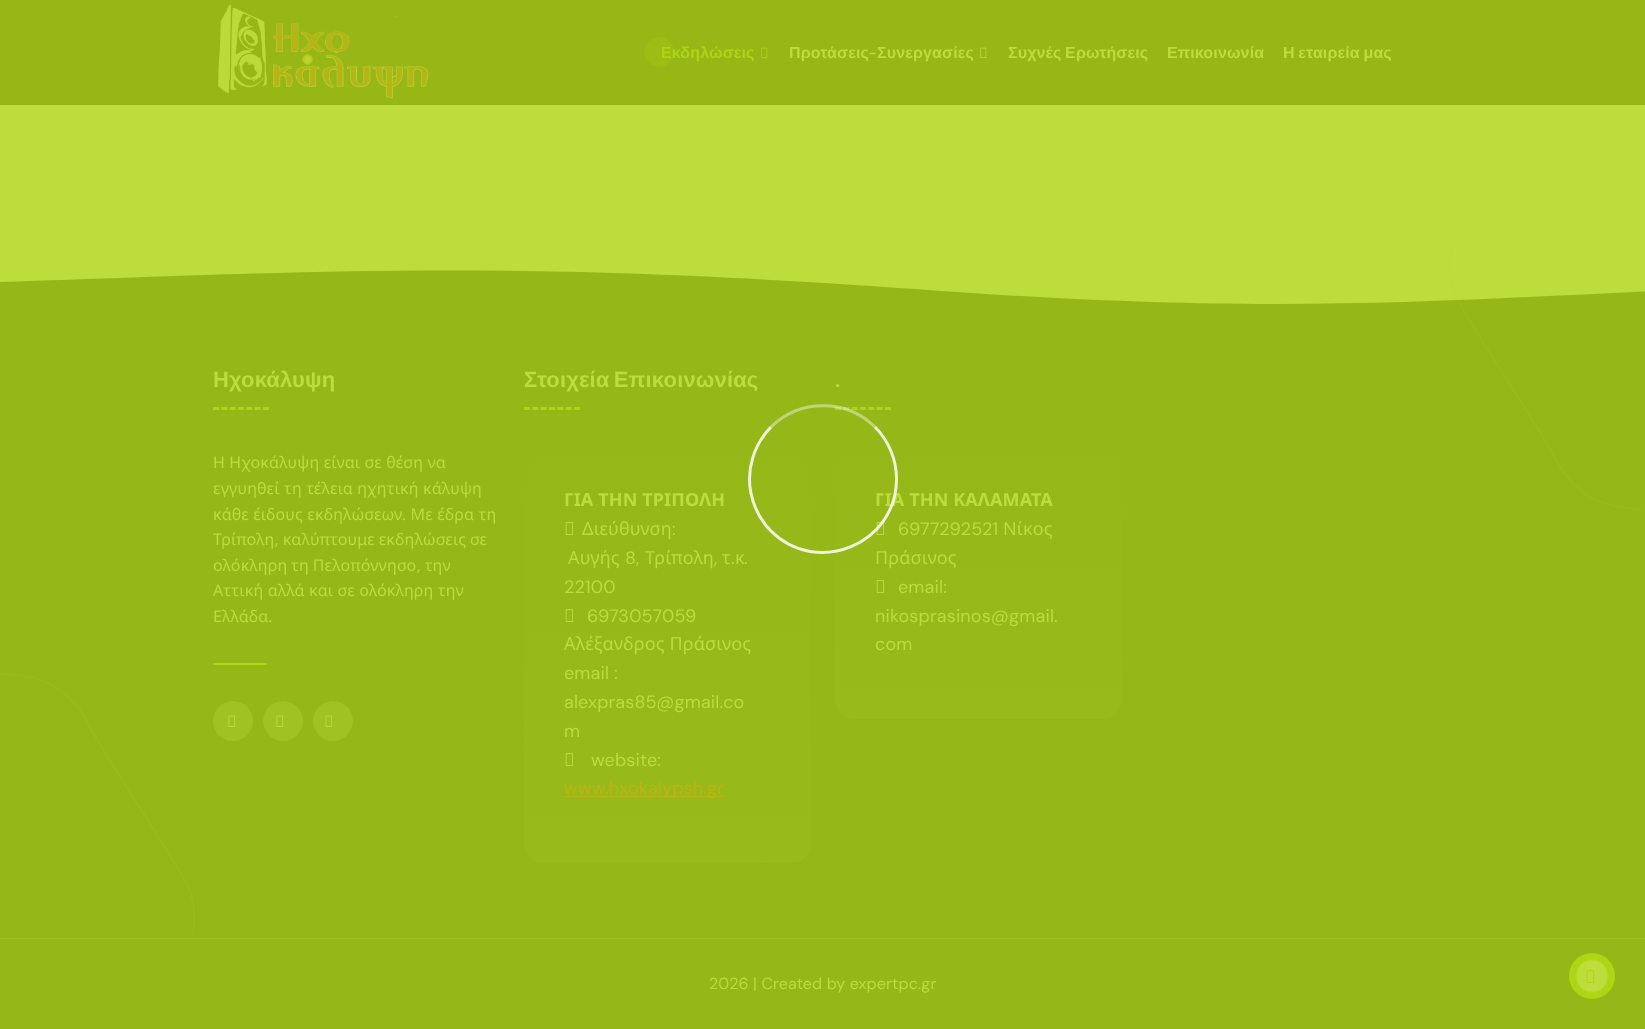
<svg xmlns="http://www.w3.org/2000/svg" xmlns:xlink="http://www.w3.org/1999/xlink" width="1645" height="1029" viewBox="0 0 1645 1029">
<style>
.cls-1{font:bold 16px Liberation Sans;letter-spacing:0.15px;fill:#afd616}
.cls-2{font:bold 16px Liberation Sans;letter-spacing:0.15px;fill:#bcdd3b}
.cls-3{font:600 16px Red Hat Display;letter-spacing:0.15px;fill:#bcdd3b}
.cls-4{font:bold 22px Liberation Sans;letter-spacing:0.15px;fill:#bcdd3b}
.cls-5{font:16px Noto Sans;letter-spacing:0.15px;fill:#bcdd3b}
.cls-6{font:bold 18px Noto Sans;letter-spacing:0.15px;fill:#bcdd3b}
.cls-7{font:18px Noto Sans;letter-spacing:0.15px;fill:#bcdd3b}
.cls-8{font:18px DM Sans;letter-spacing:0.15px;fill:#bcdd3b}
.cls-9{font:18px DM Sans;letter-spacing:0.15px;fill:#bcb412}
.cls-10{font:bold 22px Red Hat Display;letter-spacing:0.15px;fill:#bcdd3b}
.cls-11{font:16px DM Sans;letter-spacing:0.15px;fill:#bcdd3b}
</style>
<defs>
<clipPath id="clip1"><rect x="0" y="244" width="1645" height="60"/></clipPath>
<linearGradient id="g1" gradientUnits="userSpaceOnUse" x1="668" y1="432" x2="668" y2="863"><stop offset="0" stop-color="#95b718"/><stop offset="1" stop-color="#98ba1a"/></linearGradient>
<linearGradient id="g2" gradientUnits="userSpaceOnUse" x1="979" y1="438" x2="979" y2="719"><stop offset="0" stop-color="#95b718"/><stop offset="1" stop-color="#98ba1a"/></linearGradient>
<clipPath id="clip2"><rect x="1570" y="954" width="44" height="44" rx="22"/></clipPath>
</defs>
<rect width="100%" height="100%" fill="#bcdd3b"/>
<rect fill="#96b715" x="0" y="0" width="1645" height="105"/>
<image xlink:href="image0.png" x="217" y="4" width="212" height="95"/>
<image xlink:href="image1.png" x="761" y="47" width="7" height="11"/>
<image xlink:href="image2.png" x="980" y="47" width="7" height="11"/>
<rect fill="#95b718" x="0" y="270" width="1645" height="759"/>
<path fill="none" stroke="#afd616" stroke-width="3" stroke-dasharray="6 2.33" d="M835 408.5H891"/>
<path fill="none" stroke="#ffffff" stroke-opacity="0.42" stroke-width="3" d="M771 427C799.5 398.5 846.5 398.5 875 427"/>
<g clip-path="url(#clip1)">
<path fill="#bcdd3b" d="M0 282C338 271 501 260 915 289C1288 317 1447 299 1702 289C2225 273 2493 255 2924 282V224H0Z"/>
</g>
<path fill="none" stroke="#b9da38" stroke-opacity="0.1" stroke-width="2" d="M1451.5 246C1450 254 1448 275 1454.5 293C1463 315.5 1539.5 427 1555.5 458.5C1571.5 490 1596 508.5 1643 509"/>
<path fill="none" stroke="#b9da38" stroke-opacity="0.1" stroke-width="2" d="M192.5 937C194.5 929 196.5 908 189.5 890C181 867.5 104.5 756 88.5 724.5C72.5 693 48 674.5 1 674"/>
<path fill="none" stroke="#afd616" stroke-width="3" stroke-dasharray="6 2.33" d="M213 408.5H269"/>
<rect fill="#afd616" x="213" y="663" width="54" height="2" rx="1"/>
<circle fill="#a0c222" cx="233" cy="721" r="20"/>
<image xlink:href="image3.png" x="228" y="715" width="8" height="12"/>
<circle fill="#a0c222" cx="283" cy="721" r="20"/>
<image xlink:href="image3.png" x="276" y="715" width="8" height="12"/>
<circle fill="#a0c222" cx="333" cy="721" r="20"/>
<image xlink:href="image3.png" x="325" y="715" width="8" height="12"/>
<path fill="none" stroke="#afd616" stroke-width="3" stroke-dasharray="6 2.33" d="M524 408.5H580"/>
<rect fill="url(#g1)" x="524" y="450" width="287" height="413" rx="20"/>
<image xlink:href="image4.png" x="565" y="522" width="9" height="13"/>
<image xlink:href="image5.png" x="565" y="609" width="9" height="13"/>
<image xlink:href="image6.png" x="565" y="753" width="9" height="13"/>
<rect fill="#bcb412" x="564" y="796" width="160" height="1"/>
<rect fill="url(#g2)" x="835" y="450" width="287" height="269" rx="20"/>
<image xlink:href="image7.png" x="876" y="522" width="9" height="13"/>
<image xlink:href="image8.png" x="876" y="580" width="9" height="13"/>
<rect fill="#9cbe1e" x="0" y="938" width="1645" height="1"/>
<circle fill="#bcdd3b" cx="1592" cy="976" r="22"/>
<g clip-path="url(#clip2)">
<path fill="none" stroke="#afd616" stroke-width="10.4" d="M1592 955C1619.5 955 1619.5 997 1592 997C1564.5 997 1564.5 955 1592 955"/>
</g>
<circle fill="none" stroke="#afd616" stroke-width="2" cx="1592" cy="976" r="22"/>
<image xlink:href="image9.png" x="1586" y="970" width="9" height="13"/>
<text class="cls-1" x="661" y="58">Εκδηλώσεις</text>
<circle fill="#afd616" fill-opacity="0.2" cx="659" cy="52" r="15"/>
<text class="cls-2" x="789" y="58">Προτάσεις</text>
<text class="cls-3" x="869" y="58">-</text>
<text class="cls-2" x="877" y="58">Συνεργασίες</text>
<text class="cls-2" x="1008" y="58" word-spacing="-1">Συχνές Ερωτήσεις</text>
<text class="cls-2" x="1167" y="58">Επικοινωνία</text>
<text class="cls-2" x="1283" y="58" word-spacing="-1">Η εταιρεία μας</text>
<text class="cls-4" x="213" y="387">Ηχοκάλυψη</text>
<text class="cls-5"><tspan x="213" y="468">Η Ηχοκάλυψη είναι σε θέση να</tspan><tspan x="213" y="494">εγγυηθεί τη τέλεια ηχητική κάλυψη</tspan><tspan x="213" y="520">κάθε έιδους εκδηλώσεων. Με έδρα τη</tspan><tspan x="213" y="545" word-spacing="-0.5">Τρίπολη, καλύπτουμε εκδηλώσεις σε</tspan><tspan x="213" y="571" word-spacing="-0.5">ολόκληρη τη Πελοπόννησο, την</tspan><tspan x="213" y="596">Αττική αλλά και σε ολόκληρη την</tspan><tspan x="213" y="622">Ελλάδα.</tspan></text>
<text class="cls-4" x="524" y="387" word-spacing="-2">Στοιχεία Επικοινωνίας</text>
<text class="cls-6" x="564" y="506">ΓΙΑ ΤΗΝ ΤΡΙΠΟΛΗ</text>
<text class="cls-7" x="582" y="535">Διεύθυνση</text>
<text class="cls-8" x="672" y="535">:</text>
<text class="cls-7" x="568" y="564">Αυγής</text>
<text class="cls-8" x="625" y="564">8,</text>
<text class="cls-7" x="645" y="564">Τρίπολη</text>
<text class="cls-7" x="722" y="564">τ</text>
<text class="cls-7" x="735" y="564">κ</text>
<text class="cls-8" x="714" y="564">,</text>
<text class="cls-8" x="731" y="564">.</text>
<text class="cls-8" x="744" y="564">.</text>
<text class="cls-8" x="564" y="593">22100</text>
<text class="cls-8" x="587" y="622">6973057059</text>
<text class="cls-7" x="564" y="650">Αλέξανδρος Πράσινος</text>
<text class="cls-8"><tspan x="564" y="679">email :</tspan><tspan x="564" y="708">alexpras85@gmail.co</tspan><tspan x="564" y="737">m</tspan></text>
<text class="cls-8" x="591" y="766">website:</text>
<text class="cls-9" x="564" y="794">www.hxokalypsh.gr</text>
<text class="cls-10" x="835" y="387">.</text>
<text class="cls-6" x="875" y="506">ΓΙΑ ΤΗΝ ΚΑΛΑΜΑΤΑ</text>
<text class="cls-8" x="898" y="535">6977292521</text>
<text class="cls-7" x="1003" y="535">Νίκος</text>
<text class="cls-7" x="875" y="564">Πράσινος</text>
<path fill="none" stroke="#ffffff" stroke-opacity="0.84" stroke-width="3" d="M875 427C888.5 440.5 896.5 459.5 896.5 479C896.5 544 817 577 771 531C761 521 754 507.5 751 493.5C746 469.5 754 444.5 771 427"/>
<text class="cls-8" x="898" y="593">email:</text>
<text class="cls-8"><tspan x="875" y="622">nikosprasinos@gmail.</tspan><tspan x="875" y="650">com</tspan></text>
<text class="cls-11" x="709" y="989">2026 | Created by expertpc.gr</text>
</svg>
